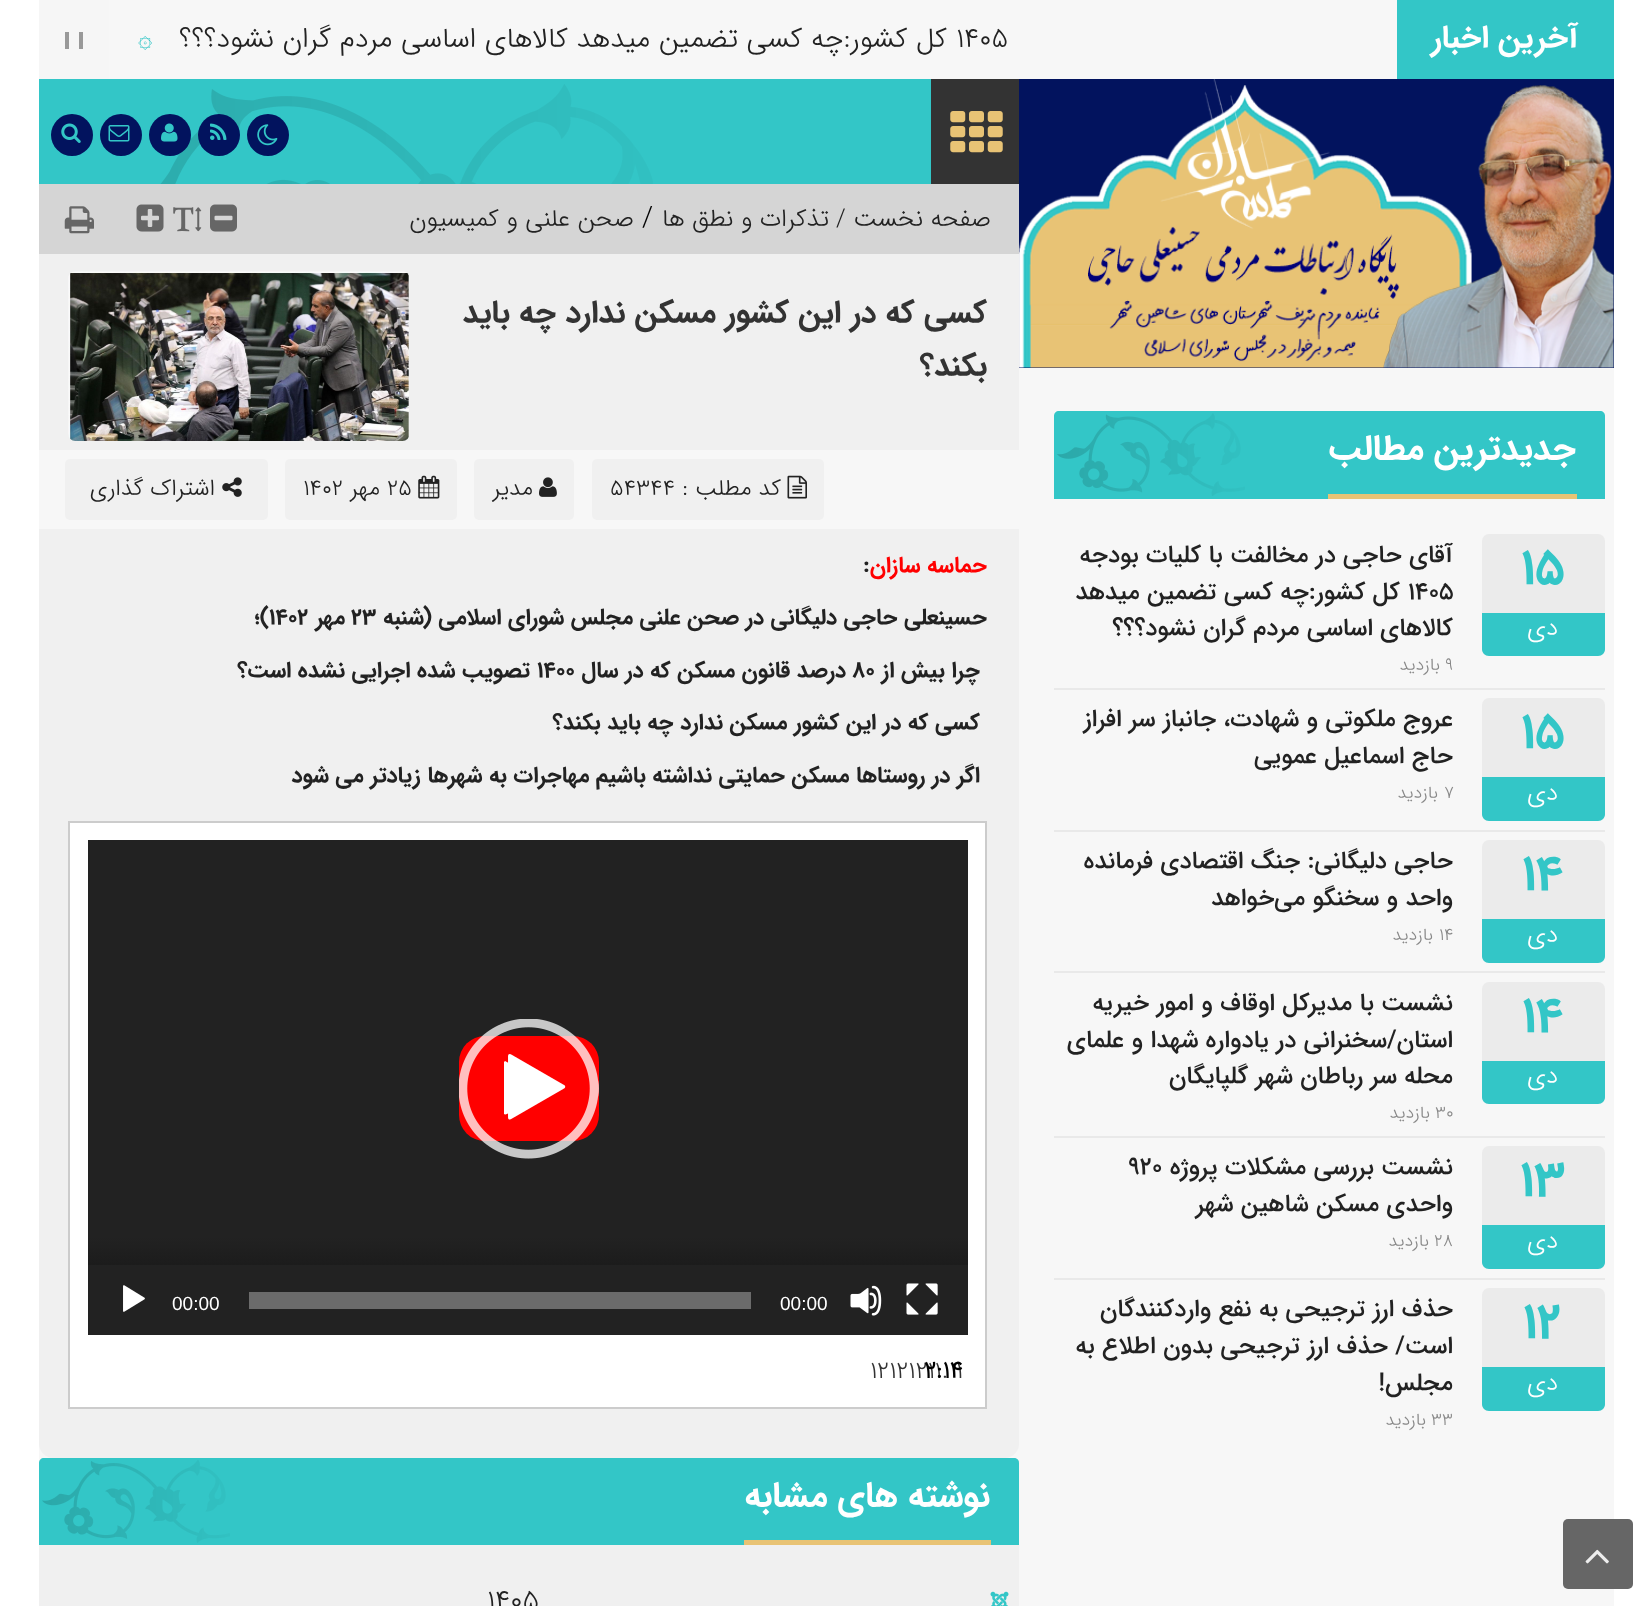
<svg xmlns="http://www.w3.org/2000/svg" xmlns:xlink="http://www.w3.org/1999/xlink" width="1649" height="1606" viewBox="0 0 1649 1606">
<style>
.cls-1{font:bold 31.5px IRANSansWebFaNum;direction:rtl;fill:#ffffff}
.cls-2{font:300 28px IRANSansWebFaNum;fill:#222222}
.cls-3{font:300 28px IRANSansWebFaNum;direction:rtl;fill:#222222}
.cls-4{font:24.5px Cascadia Code;fill:#33c6c7}
.cls-5{font:bold 35px IRANSansWebFaNum;direction:rtl;fill:#ffffff}
.cls-6{font:bold 49px IRANSansWebFaNum;fill:#33c6c7}
.cls-7{font:300 24.5px IRANSansWebFaNum;direction:rtl;fill:#ffffff}
.cls-8{font:500 24.5px IRANSansWebFaNum;direction:rtl;fill:#222222}
.cls-9{font:500 24.5px IRANSansWebFaNum;fill:#222222}
.cls-10{font:300 17.5px IRANSansWebFaNum;fill:#888888}
.cls-11{font:300 17.5px IRANSansWebFaNum;direction:rtl;fill:#888888}
.cls-12{font:300 24.5px IRANSansWebFaNum;direction:rtl;fill:#222222}
.cls-13{font:300 28px IRANSansWebFaNum;fill:#000000}
.cls-14{font:bold 31.5px IRANSansWebFaNum;direction:rtl;fill:#333333}
.cls-15{font:300 22.75px IRANSansWebFaNum;direction:rtl;fill:#222222}
.cls-16{font:300 22.75px IRANSansWebFaNum;fill:#222222}
.cls-17{font:bold 22.4px IRANSansWebFaNum;direction:rtl;fill:#ff0000}
.cls-18{font:bold 22.4px IRANSansWebFaNum;fill:#222222}
.cls-19{font:bold 22.4px IRANSansWebFaNum;direction:rtl;fill:#222222}
.cls-20{font:19px Liberation Sans;fill:#ffffff}
.cls-21{font:300 24.5px IRANSansWebFaNum;fill:#333333}
.cls-22{font:bold 24.5px 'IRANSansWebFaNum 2';fill:#000000}
</style>
<defs>
<linearGradient id="g1" gradientUnits="userSpaceOnUse" x1="528" y1="1339" x2="528" y2="1237"><stop offset="0" stop-color="#0c0c0c"/><stop offset="1" stop-color="#222222"/></linearGradient>
</defs>
<rect width="100%" height="100%" fill="#ffffff"/>
<rect fill="#f7f7f7" x="109" y="0" width="1288" height="79"/>
<rect fill="#33c6c7" x="1397" y="0" width="217" height="79"/>
<rect fill="#f6f6f6" x="39" y="0" width="70" height="79"/>
<rect fill="#999999" x="79" y="32" width="4" height="17"/>
<rect fill="#999999" x="65" y="32" width="4" height="17"/>
<rect fill="#02135e" x="1019" y="79" width="595" height="289"/>
<image xlink:href="image0.png" x="1019" y="79" width="595" height="289"/>
<rect fill="#333333" x="931" y="79" width="88" height="105"/>
<image xlink:href="image1.png" x="950" y="111" width="53" height="42"/>
<rect fill="#33c6c7" x="39" y="79" width="892" height="105"/>
<image xlink:href="image2.png" x="160" y="84" width="493" height="100"/>
<circle fill="#02135e" cx="268" cy="135" r="21"/>
<image xlink:href="image3.png" x="257" y="124" width="21" height="22"/>
<circle fill="#02135e" cx="219" cy="135" r="21"/>
<image xlink:href="image4.png" x="210" y="123" width="17" height="17"/>
<circle fill="#02135e" cx="170" cy="135" r="21"/>
<image xlink:href="image5.png" x="161" y="123" width="17" height="19"/>
<circle fill="#02135e" cx="121" cy="135" r="21"/>
<image xlink:href="image6.png" x="108" y="125" width="22" height="17"/>
<circle fill="#02135e" cx="72" cy="135" r="21"/>
<image xlink:href="image7.png" x="61" y="123" width="20" height="20"/>
<rect fill="#f7f7f7" x="39" y="368" width="1575" height="1238"/>
<rect fill="#666666" x="1563" y="1519" width="70" height="70" rx="5"/>
<image xlink:href="image8.png" x="1585" y="1549" width="24" height="15"/>
<path fill="#33c6c7" d="M1059 411H1600C1603 411 1605 413 1605 416V499H1054V416C1054 413 1056 411 1059 411Z"/>
<image xlink:href="image9.png" x="1057" y="413" width="188" height="83"/>
<rect fill="#e8c375" x="1328" y="494" width="249" height="5"/>
<rect fill="#e9e9e9" x="1054" y="688" width="551" height="2"/>
<rect fill="#ebebeb" x="1482" y="534" width="123" height="122" rx="7"/>
<path fill="#33c6c7" d="M1482 613H1605V649C1605 653 1602 656 1598 656H1489C1485 656 1482 653 1482 649Z"/>
<rect fill="#e9e9e9" x="1054" y="830" width="551" height="2"/>
<rect fill="#ebebeb" x="1482" y="698" width="123" height="123" rx="7"/>
<path fill="#33c6c7" d="M1482 777H1605V814C1605 818 1602 821 1598 821H1489C1485 821 1482 818 1482 814Z"/>
<rect fill="#e9e9e9" x="1054" y="971" width="551" height="2"/>
<rect fill="#ebebeb" x="1482" y="840" width="123" height="123" rx="7"/>
<path fill="#33c6c7" d="M1482 919H1605V956C1605 960 1602 963 1598 963H1489C1485 963 1482 960 1482 956Z"/>
<rect fill="#e9e9e9" x="1054" y="1136" width="551" height="2"/>
<rect fill="#ebebeb" x="1482" y="982" width="123" height="122" rx="7"/>
<path fill="#33c6c7" d="M1482 1061H1605V1097C1605 1101 1602 1104 1598 1104H1489C1485 1104 1482 1101 1482 1097Z"/>
<rect fill="#e9e9e9" x="1054" y="1278" width="551" height="2"/>
<rect fill="#ebebeb" x="1482" y="1146" width="123" height="123" rx="7"/>
<path fill="#33c6c7" d="M1482 1225H1605V1262C1605 1266 1602 1269 1598 1269H1489C1485 1269 1482 1266 1482 1262Z"/>
<rect fill="#ebebeb" x="1482" y="1288" width="123" height="123" rx="7"/>
<path fill="#33c6c7" d="M1482 1367H1605V1404C1605 1408 1602 1411 1598 1411H1489C1485 1411 1482 1408 1482 1404Z"/>
<rect fill="#d5d5d5" x="39" y="184" width="980" height="70"/>
<image xlink:href="image10.png" x="210" y="204" width="27" height="28"/>
<image xlink:href="image11.png" x="173" y="207" width="29" height="25"/>
<image xlink:href="image12.png" x="136" y="204" width="28" height="28"/>
<image xlink:href="image13.png" x="64" y="206" width="30" height="28"/>
<rect fill="#f0f0f0" x="39" y="254" width="980" height="196"/>
<image xlink:href="image14.png" x="68" y="271" width="341" height="170"/>
<rect fill="#f0f0f0" x="592" y="459" width="232" height="61" rx="5"/>
<image xlink:href="image15.png" x="787" y="475" width="20" height="24"/>
<rect fill="#f0f0f0" x="474" y="459" width="100" height="61" rx="5"/>
<image xlink:href="image16.png" x="539" y="477" width="18" height="20"/>
<rect fill="#f0f0f0" x="285" y="459" width="172" height="61" rx="5"/>
<image xlink:href="image17.png" x="418" y="475" width="22" height="24"/>
<rect fill="#f0f0f0" x="65" y="459" width="203" height="61" rx="5"/>
<image xlink:href="image18.png" x="222" y="477" width="20" height="20"/>
<path fill="#f0f0f0" d="M39 529H1019V1444C1019 1451.5 1012.5 1458 1005 1458H53C45.5 1458 39 1451.5 39 1444Z"/>
<rect fill="#ffffff" stroke="#cccccc" stroke-width="2" x="69" y="822" width="917" height="586"/>
<rect fill="#222222" x="88" y="840" width="880" height="397"/>
<rect fill="#ff0000" x="459" y="1036" width="140" height="105" rx="26"/>
<path fill="#ffffff" d="M551 1089L513 1110C513 1110 506 1116 504 1114V1062L505 1061L551 1087H552Z"/>
<rect fill="url(#g1)" x="88" y="1237" width="880" height="28"/>
<image xlink:href="image19.png" x="459" y="1019" width="140" height="140"/>
<rect fill="#222222" x="88" y="1265" width="880" height="70"/>
<image xlink:href="image20.png" x="906" y="1283" width="32" height="32"/>
<image xlink:href="image21.png" x="850" y="1285" width="32" height="31"/>
<rect fill="#6b6b6b" x="249" y="1292" width="502" height="17"/>
<image xlink:href="image22.png" x="123" y="1285" width="22" height="27"/>
<rect fill="#f0f0f0" x="39" y="1458" width="980" height="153" rx="5"/>
<path fill="#33c6c7" d="M44 1458H1014C1017 1458 1019 1460 1019 1463V1545H39V1463C39 1460 41 1458 44 1458Z"/>
<image xlink:href="image23.png" x="42" y="1460" width="188" height="83"/>
<rect fill="#e8c375" x="744" y="1540" width="247" height="5"/>
<image xlink:href="image24.png" x="990" y="1591" width="19" height="15"/>
<text class="cls-1" x="1578" y="47">آخرین اخبار</text>
<text class="cls-2" x="956" y="47">۱۴۰۵</text>
<text class="cls-3" x="947" y="47">کل کشور:چه کسی تضمین میدهد کالاهای اساسی مردم گران نشود؟؟؟</text>
<text class="cls-4" x="138" y="47">۞</text>
<text class="cls-5" x="1576" y="459">جدیدترین مطالب</text>
<text class="cls-6" x="1521" y="583">۱۵</text>
<text class="cls-7" x="1558" y="635">دی</text>
<text class="cls-8" x="1453" y="562">آقای حاجی در مخالفت با کلیات بودجه</text>
<text class="cls-9" x="1408" y="599">۱۴۰۵</text>
<text class="cls-8" x="1400" y="599">کل کشور:چه کسی تضمین میدهد</text>
<text class="cls-8" x="1453" y="635">کالاهای اساسی مردم گران نشود؟؟؟</text>
<text class="cls-10" x="1445" y="670">9</text>
<text class="cls-11" x="1440" y="670">بازدید</text>
<text class="cls-6" x="1521" y="747">۱۵</text>
<text class="cls-7" x="1558" y="800">دی</text>
<text class="cls-8"><tspan x="1453" y="726">عروج ملکوتی و شهادت، جانباز سر افراز</tspan><tspan x="1453" y="763">حاج اسماعیل عمویی</tspan></text>
<text class="cls-10" x="1444" y="798">7</text>
<text class="cls-11" x="1438" y="798">بازدید</text>
<text class="cls-6" x="1522" y="889">۱۴</text>
<text class="cls-7" x="1558" y="942">دی</text>
<text class="cls-8"><tspan x="1453" y="868">حاجی دلیگانی: جنگ اقتصادی فرمانده</tspan><tspan x="1453" y="905">واحد و سخنگو می‌خواهد</tspan></text>
<text class="cls-10" x="1439" y="940">14</text>
<text class="cls-11" x="1433" y="940">بازدید</text>
<text class="cls-6" x="1522" y="1031">۱۴</text>
<text class="cls-7" x="1558" y="1083">دی</text>
<text class="cls-8"><tspan x="1453" y="1010">نشست با مدیرکل اوقاف و امور خیریه</tspan><tspan x="1453" y="1047">استان/سخنرانی در یادواره شهدا و علمای</tspan><tspan x="1453" y="1083">محله سر رباطان شهر گلپایگان</tspan></text>
<text class="cls-10" x="1435" y="1118">30</text>
<text class="cls-11" x="1430" y="1118">بازدید</text>
<text class="cls-6" x="1520" y="1195">۱۳</text>
<text class="cls-7" x="1558" y="1248">دی</text>
<text class="cls-8" x="1453" y="1174">نشست بررسی مشکلات پروژه</text>
<text class="cls-9" x="1128" y="1174">۹۲۰</text>
<text class="cls-8" x="1453" y="1211">واحدی مسکن شاهین شهر</text>
<text class="cls-10" x="1434" y="1246">28</text>
<text class="cls-11" x="1429" y="1246">بازدید</text>
<text class="cls-6" x="1523" y="1337">۱۲</text>
<text class="cls-7" x="1558" y="1390">دی</text>
<text class="cls-8"><tspan x="1453" y="1316">حذف ارز ترجیحی به نفع واردکنندگان</tspan><tspan x="1453" y="1353">است/ حذف ارز ترجیحی بدون اطلاع به</tspan><tspan x="1453" y="1390">مجلس!</tspan></text>
<text class="cls-10" x="1431" y="1425">33</text>
<text class="cls-11" x="1426" y="1425">بازدید</text>
<text class="cls-12" x="991" y="226">صفحه نخست /</text>
<text class="cls-12" x="829" y="226">تذكرات و نطق ها</text>
<text class="cls-13" x="642" y="226">/</text>
<text class="cls-12" x="634" y="226">صحن علني و كميسيون</text>
<text class="cls-14"><tspan x="987" y="322">کسی که در این کشور مسکن ندارد چه باید</tspan><tspan x="987" y="375">بکند؟</tspan></text>
<text class="cls-15" x="781" y="495">کد مطلب :</text>
<text class="cls-16" x="610" y="495">54344</text>
<text class="cls-15" x="533" y="495">مدیر</text>
<text class="cls-16" x="387" y="495">25</text>
<text class="cls-15" x="380" y="495">مهر</text>
<text class="cls-16" x="303" y="495">1402</text>
<text class="cls-15" x="215" y="495">اشتراک گذاری</text>
<text class="cls-17" x="987" y="572">حماسه سازان</text>
<text class="cls-18" x="863" y="572">:</text>
<text class="cls-19" x="987" y="624">حسینعلی حاجی دلیگانی در صحن علنی مجلس شورای اسلامی (شنبه</text>
<text class="cls-18" x="351" y="624">۲۳</text>
<text class="cls-19" x="345" y="624">مهر</text>
<text class="cls-18" x="269" y="624">۱۴۰۲</text>
<text class="cls-19" x="269" y="624">)؛</text>
<text class="cls-19" x="980" y="677">چرا بیش از</text>
<text class="cls-18" x="852" y="677">۸۰</text>
<text class="cls-19" x="846" y="677">درصد قانون مسکن که در سال</text>
<text class="cls-18" x="537" y="677">۱۴۰۰</text>
<text class="cls-19" x="530" y="677">تصویب شده اجرایی نشده است؟</text>
<text class="cls-19" x="980" y="729">کسی که در این کشور مسکن ندارد چه باید بکند؟</text>
<text class="cls-19" x="980" y="782">اگر در روستاها مسکن حمایتی نداشته باشیم مهاجرات به شهرها زیادتر می شود</text>
<text class="cls-20" x="780" y="1310">00:00</text>
<text class="cls-20" x="172" y="1310">00:00</text>
<text class="cls-21" x="942" y="1378">. 1</text>
<text class="cls-21" x="870" y="1378">12121211</text>
<text class="cls-22" x="924" y="1378">2:14</text>
<text class="cls-5" x="990" y="1506">نوشته های مشابه</text>
<text class="cls-2" x="487" y="1609">۱۴۰۵</text>
</svg>
